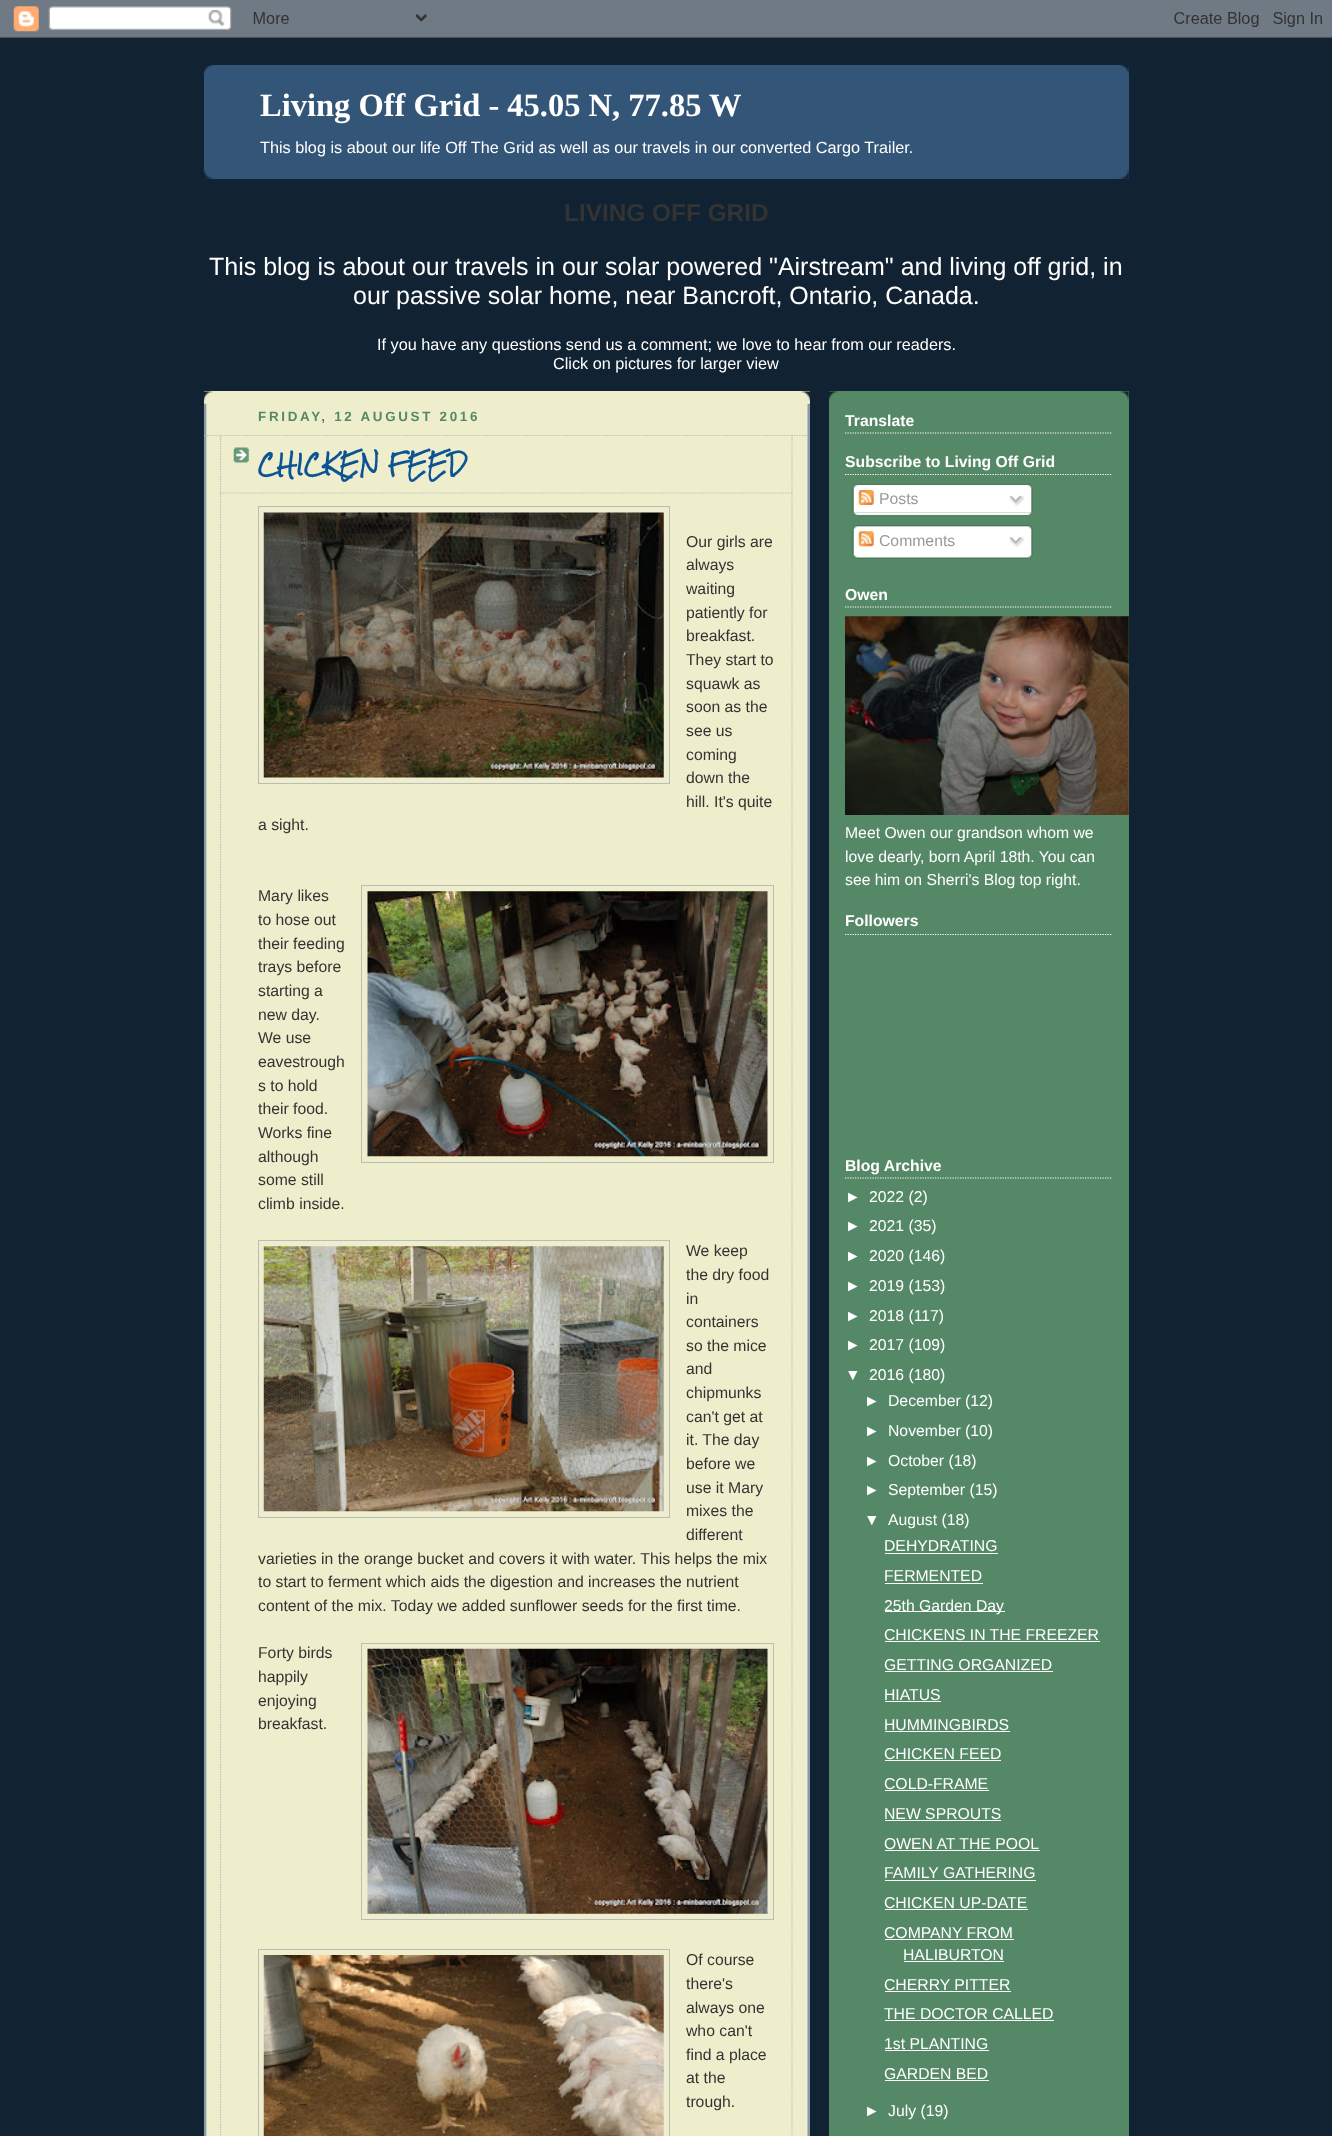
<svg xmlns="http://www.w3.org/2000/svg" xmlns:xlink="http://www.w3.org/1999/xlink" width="1332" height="2136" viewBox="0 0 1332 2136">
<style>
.cls-1{font:bold 32.5px Liberation Serif;fill:#ffffff}
.cls-2{font:16.25px Liberation Sans;fill:#ffffff}
.cls-3{font:bold 24.4px Liberation Sans;fill:#333333}
.cls-4{font:25px Liberation Sans;fill:#ffffff}
.cls-5{font:bold 13.4px Liberation Sans;letter-spacing:2.7px;fill:#558866}
.cls-6{font:bold 21.25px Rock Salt;fill:#0b5394}
.cls-7{font:15.75px Liberation Sans;fill:#333333}
.cls-8{font:bold 15.75px Liberation Sans;fill:#ffffff}
.cls-9{font:15.75px Liberation Sans;fill:#999999}
.cls-10{font:15.75px Liberation Sans;fill:#ffffff}
</style>
<rect width="100%" height="100%" fill="#112233"/>
<image xlink:href="image0.png" x="0" y="0" width="1332" height="38"/>
<rect fill="#335577" x="204" y="65" width="925" height="114"/>
<image xlink:href="image1.png" x="203" y="65" width="926" height="10"/>
<image xlink:href="image2.png" x="203" y="169" width="926" height="10"/>
<rect fill="#eeeecc" x="204" y="391" width="606" height="1745"/>
<image xlink:href="image3.png" x="203" y="391" width="607" height="10"/>
<image xlink:href="image4.png" x="203" y="403" width="607" height="1733"/>
<path fill="none" stroke="#bbbbbb" stroke-width="1.2" stroke-dasharray="1.25 1.25" d="M204 435.5H809"/>
<image xlink:href="image5.png" x="233" y="447" width="16" height="16"/>
<path fill="none" stroke="#bbbbbb" stroke-width="1.2" stroke-dasharray="1.25 1.25" d="M792 436V494"/>
<path fill="none" stroke="#bbbbbb" stroke-width="1.2" stroke-dasharray="1.25 1.25" d="M220 493H792.5"/>
<path fill="none" stroke="#bbbbbb" stroke-width="1.2" stroke-dasharray="1.25 1.25" d="M220.5 436V494"/>
<path fill="none" stroke="#bbbbbb" stroke-width="1.2" stroke-dasharray="1.25 1.25" d="M792 494V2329"/>
<path fill="none" stroke="#bbbbbb" stroke-width="1.2" stroke-dasharray="1.25 1.25" d="M220.5 494V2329"/>
<rect fill="none" stroke="#bbbbbb" x="258.5" y="506.5" width="411" height="277"/>
<image xlink:href="image6.png" x="263" y="512" width="401" height="266"/>
<rect fill="none" stroke="#bbbbbb" x="361.5" y="885.5" width="412" height="277"/>
<image xlink:href="image7.png" x="367" y="891" width="401" height="266"/>
<rect fill="none" stroke="#bbbbbb" x="258.5" y="1240.5" width="411" height="277"/>
<image xlink:href="image8.png" x="263" y="1246" width="401" height="266"/>
<rect fill="none" stroke="#bbbbbb" x="361.5" y="1643.5" width="412" height="276"/>
<image xlink:href="image9.png" x="367" y="1648" width="401" height="266"/>
<rect fill="none" stroke="#bbbbbb" x="258.5" y="1949.5" width="411" height="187"/>
<image xlink:href="image10.png" x="263" y="1955" width="401" height="181"/>
<rect fill="#558866" x="829" y="391" width="300" height="1745"/>
<image xlink:href="image11.png" x="828" y="391" width="301" height="10"/>
<path fill="none" stroke="#ffffff" stroke-width="1.2" stroke-dasharray="1.25 1.25" d="M845 433H1112.5"/>
<path fill="none" stroke="#ffffff" stroke-width="1.2" stroke-dasharray="1.25 1.25" d="M845 474.5H1112.5"/>
<image xlink:href="image12.png" x="852" y="483" width="181" height="30"/>
<image xlink:href="image13.png" x="858" y="490" width="16" height="15"/>
<image xlink:href="image14.png" x="1009" y="495" width="16" height="11"/>
<image xlink:href="image15.png" x="852" y="512" width="181" height="5"/>
<image xlink:href="image16.png" x="852" y="525" width="181" height="30"/>
<image xlink:href="image17.png" x="858" y="531" width="16" height="16"/>
<image xlink:href="image18.png" x="1009" y="536" width="16" height="12"/>
<image xlink:href="image19.png" x="852" y="555" width="181" height="4"/>
<path fill="none" stroke="#ffffff" stroke-width="1.2" stroke-dasharray="1.25 1.25" d="M845 607H1112.5"/>
<image xlink:href="image20.png" x="845" y="616" width="284" height="199"/>
<path fill="none" stroke="#ffffff" stroke-width="1.2" stroke-dasharray="1.25 1.25" d="M845 934.5H1112.5"/>
<path fill="none" stroke="#ffffff" stroke-width="1.2" stroke-dasharray="1.25 1.25" d="M845 1178H1112.5"/>
<rect fill="#ffffff" x="885" y="1553" width="113" height="1"/>
<rect fill="#ffffff" x="885" y="1583" width="98" height="1"/>
<rect fill="#ffffff" x="885" y="1611" width="120" height="1"/>
<rect fill="#ffffff" x="885" y="1641" width="215" height="1"/>
<rect fill="#ffffff" x="885" y="1671" width="168" height="1"/>
<rect fill="#ffffff" x="885" y="1701" width="56" height="1"/>
<rect fill="#ffffff" x="885" y="1731" width="125" height="1"/>
<rect fill="#ffffff" x="885" y="1760" width="116" height="1"/>
<rect fill="#ffffff" x="885" y="1790" width="104" height="1"/>
<rect fill="#ffffff" x="885" y="1820" width="116" height="1"/>
<rect fill="#ffffff" x="885" y="1850" width="155" height="1"/>
<rect fill="#ffffff" x="885" y="1880" width="151" height="1"/>
<rect fill="#ffffff" x="885" y="1909" width="143" height="1"/>
<rect fill="#ffffff" x="885" y="1939" width="129" height="1"/>
<rect fill="#ffffff" x="904" y="1961" width="100" height="1"/>
<rect fill="#ffffff" x="885" y="1991" width="126" height="1"/>
<rect fill="#ffffff" x="885" y="2020" width="169" height="1"/>
<rect fill="#ffffff" x="885" y="2050" width="104" height="1"/>
<rect fill="#ffffff" x="885" y="2080" width="104" height="1"/>
<text class="cls-1" x="260" y="116">Living Off Grid - 45.05 N, 77.85 W</text>
<text class="cls-2" x="260" y="153">This blog is about our life Off The Grid as well as our travels in our converted Cargo Trailer.</text>
<text class="cls-3" x="564" y="221">LIVING OFF GRID</text>
<text class="cls-4" x="209" y="275">This blog is about our travels in our solar powered "Airstream" and living off grid, in</text>
<text class="cls-4" x="353" y="304">our passive solar home, near Bancroft, Ontario, Canada.</text>
<text class="cls-2" x="377" y="350">If you have any questions send us a comment; we love to hear from our readers.</text>
<text class="cls-2" x="553" y="369">Click on pictures for larger view</text>
<text class="cls-5" x="258" y="421">FRIDAY, 12 AUGUST 2016</text>
<text class="cls-6" x="258" y="473">CHICKEN FEED</text>
<text class="cls-7"><tspan x="686" y="547">Our girls are</tspan><tspan x="686" y="570">always</tspan><tspan x="686" y="594">waiting</tspan><tspan x="686" y="618">patiently for</tspan><tspan x="686" y="641">breakfast.</tspan><tspan x="686" y="665">They start to</tspan><tspan x="686" y="689">squawk as</tspan><tspan x="686" y="712">soon as the</tspan><tspan x="686" y="736">see us</tspan><tspan x="686" y="760">coming</tspan><tspan x="686" y="783">down the</tspan><tspan x="686" y="807">hill. It's quite</tspan></text>
<text class="cls-7" x="258" y="830">a sight.</text>
<text class="cls-7"><tspan x="258" y="901">Mary likes</tspan><tspan x="258" y="925">to hose out</tspan><tspan x="258" y="949">their feeding</tspan><tspan x="258" y="972">trays before</tspan><tspan x="258" y="996">starting a</tspan><tspan x="258" y="1020">new day.</tspan><tspan x="258" y="1043">We use</tspan><tspan x="258" y="1067">eavestrough</tspan><tspan x="258" y="1091">s to hold</tspan><tspan x="258" y="1114">their food.</tspan><tspan x="258" y="1138">Works fine</tspan><tspan x="258" y="1162">although</tspan><tspan x="258" y="1185">some still</tspan><tspan x="258" y="1209">climb inside.</tspan></text>
<text class="cls-7"><tspan x="686" y="1256">We keep</tspan><tspan x="686" y="1280">the dry food</tspan><tspan x="686" y="1304">in</tspan><tspan x="686" y="1327">containers</tspan><tspan x="686" y="1351">so the mice</tspan><tspan x="686" y="1374">and</tspan><tspan x="686" y="1398">chipmunks</tspan><tspan x="686" y="1422">can't get at</tspan><tspan x="686" y="1445">it. The day</tspan><tspan x="686" y="1469">before we</tspan><tspan x="686" y="1493">use it Mary</tspan><tspan x="686" y="1516">mixes the</tspan><tspan x="686" y="1540">different</tspan></text>
<text class="cls-7"><tspan x="258" y="1564">varieties in the orange bucket and covers it with water. This helps the mix</tspan><tspan x="258" y="1587">to start to ferment which aids the digestion and increases the nutrient</tspan><tspan x="258" y="1611">content of the mix. Today we added sunflower seeds for the first time.</tspan></text>
<text class="cls-7"><tspan x="258" y="1658">Forty birds</tspan><tspan x="258" y="1682">happily</tspan><tspan x="258" y="1706">enjoying</tspan><tspan x="258" y="1729">breakfast.</tspan></text>
<text class="cls-7"><tspan x="686" y="1965">Of course</tspan><tspan x="686" y="1989">there's</tspan><tspan x="686" y="2013">always one</tspan><tspan x="686" y="2036">who can't</tspan><tspan x="686" y="2060">find a place</tspan><tspan x="686" y="2083">at the</tspan><tspan x="686" y="2107">trough.</tspan></text>
<text class="cls-8" x="845" y="426">Translate</text>
<text class="cls-8" x="845" y="467">Subscribe to Living Off Grid</text>
<text class="cls-9" x="879" y="504">Posts</text>
<text class="cls-9" x="879" y="546">Comments</text>
<text class="cls-8" x="845" y="600">Owen</text>
<text class="cls-10"><tspan x="845" y="838">Meet Owen our grandson whom we</tspan><tspan x="845" y="862">love dearly, born April 18th. You can</tspan><tspan x="845" y="885">see him on Sherri's Blog top right.</tspan></text>
<text class="cls-8" x="845" y="926">Followers</text>
<text class="cls-8" x="845" y="1171">Blog Archive</text>
<text class="cls-10" x="845" y="1202">►</text>
<text class="cls-10" x="869" y="1202">2022 (2)</text>
<text class="cls-10" x="845" y="1231">►</text>
<text class="cls-10" x="869" y="1231">2021 (35)</text>
<text class="cls-10" x="845" y="1261">►</text>
<text class="cls-10" x="869" y="1261">2020 (146)</text>
<text class="cls-10" x="845" y="1291">►</text>
<text class="cls-10" x="869" y="1291">2019 (153)</text>
<text class="cls-10" x="845" y="1321">►</text>
<text class="cls-10" x="869" y="1321">2018 (117)</text>
<text class="cls-10" x="845" y="1350">►</text>
<text class="cls-10" x="869" y="1350">2017 (109)</text>
<text class="cls-10" x="845" y="1380">▼</text>
<text class="cls-10" x="869" y="1380">2016 (180)</text>
<text class="cls-10" x="864" y="1406">►</text>
<text class="cls-10" x="888" y="1406">December (12)</text>
<text class="cls-10" x="864" y="1436">►</text>
<text class="cls-10" x="888" y="1436">November (10)</text>
<text class="cls-10" x="864" y="1466">►</text>
<text class="cls-10" x="888" y="1466">October (18)</text>
<text class="cls-10" x="864" y="1495">►</text>
<text class="cls-10" x="888" y="1495">September (15)</text>
<text class="cls-10" x="864" y="1525">▼</text>
<text class="cls-10" x="888" y="1525">August (18)</text>
<text class="cls-10"><tspan x="884" y="1551">DEHYDRATING</tspan><tspan x="884" y="1581">FERMENTED</tspan><tspan x="884" y="1611">25th Garden Day</tspan><tspan x="884" y="1640">CHICKENS IN THE FREEZER</tspan><tspan x="884" y="1670">GETTING ORGANIZED</tspan><tspan x="884" y="1700">HIATUS</tspan><tspan x="884" y="1730">HUMMINGBIRDS</tspan><tspan x="884" y="1759">CHICKEN FEED</tspan><tspan x="884" y="1789">COLD-FRAME</tspan><tspan x="884" y="1819">NEW SPROUTS</tspan><tspan x="884" y="1849">OWEN AT THE POOL</tspan><tspan x="884" y="1878">FAMILY GATHERING</tspan><tspan x="884" y="1908">CHICKEN UP-DATE</tspan><tspan x="884" y="1938">COMPANY FROM</tspan></text>
<text class="cls-10" x="903" y="1960">HALIBURTON</text>
<text class="cls-10"><tspan x="884" y="1990">CHERRY PITTER</tspan><tspan x="884" y="2019">THE DOCTOR CALLED</tspan><tspan x="884" y="2049">1st PLANTING</tspan><tspan x="884" y="2079">GARDEN BED</tspan></text>
<text class="cls-10" x="864" y="2116">►</text>
<text class="cls-10" x="888" y="2116">July (19)</text>
</svg>
